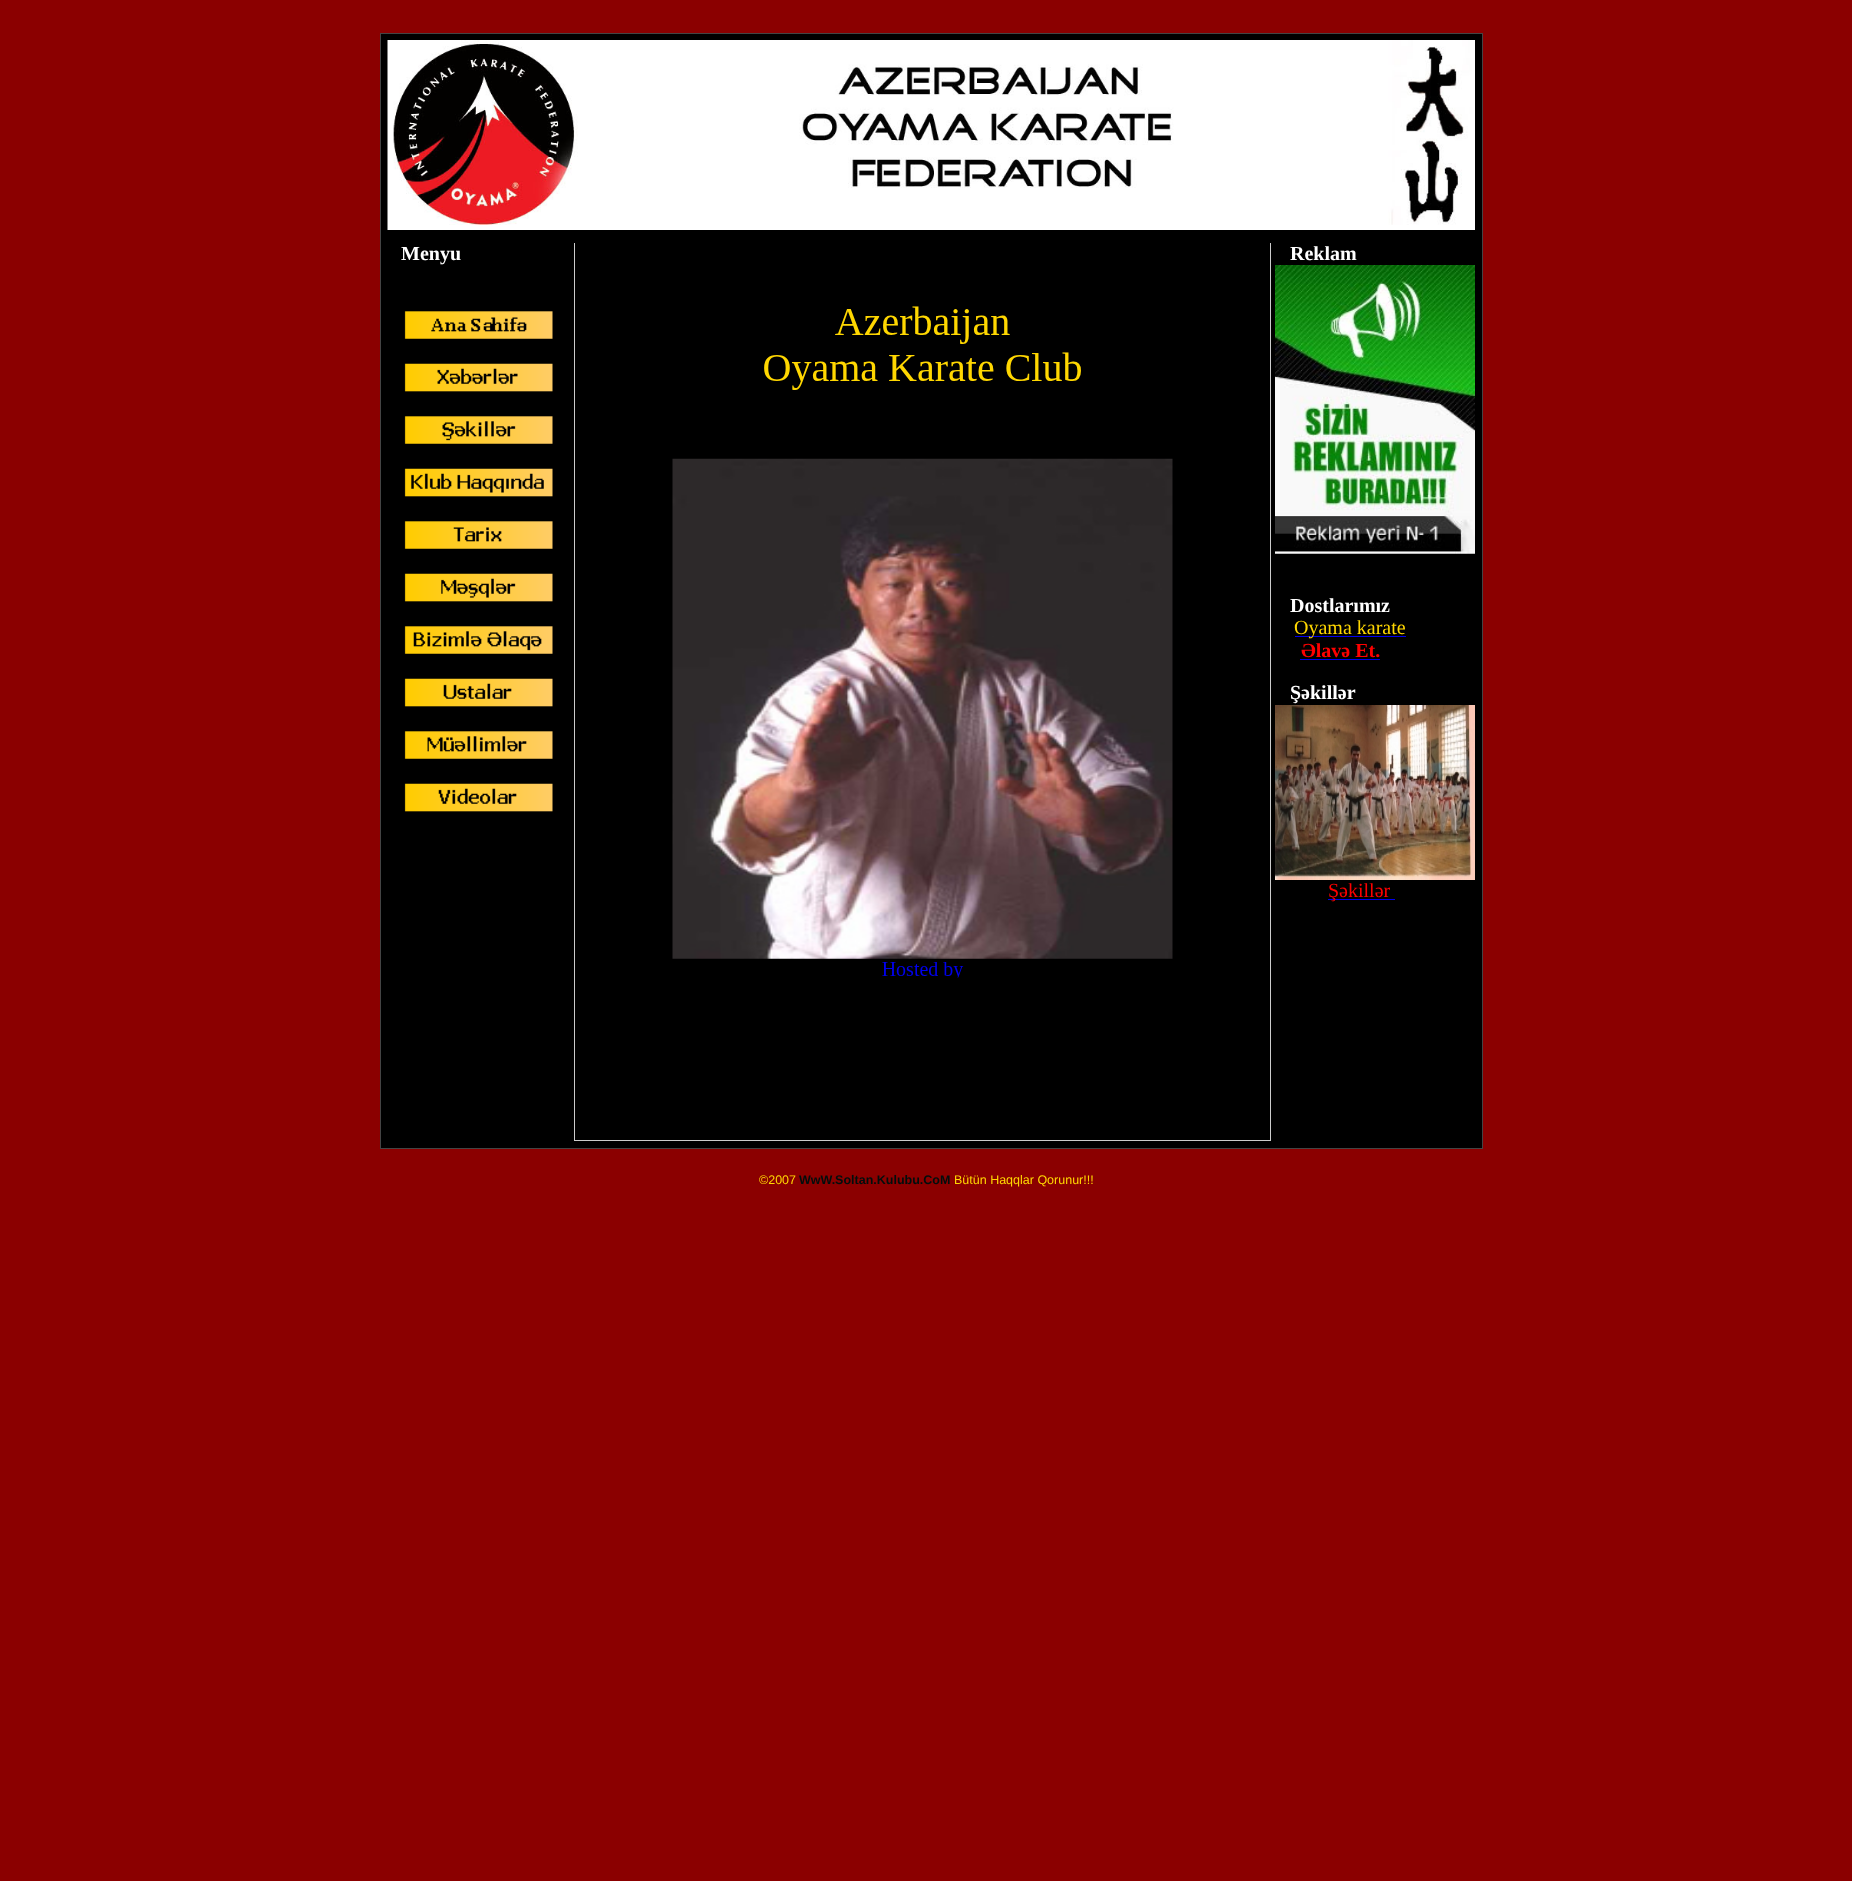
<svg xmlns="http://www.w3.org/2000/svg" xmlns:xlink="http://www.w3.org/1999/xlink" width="1852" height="1881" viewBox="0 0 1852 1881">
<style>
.cls-1{font:bold 20px Liberation Serif;fill:#ffffff}
.cls-2{font:20px Liberation Serif;fill:#ffd700}
.cls-3{font:bold 20px Liberation Serif;fill:#ff0000}
.cls-4{font:20px Liberation Serif;fill:#ff0000}
.cls-5{font:12.5px Liberation Sans;fill:#ffd700}
.cls-6{font:bold 12.5px Liberation Sans;fill:#000e0d}
</style>
<rect width="100%" height="100%" fill="#8b0000"/>
<rect fill="#000000" stroke="#444444" x="380.5" y="33.5" width="1102" height="1115"/>
<image xlink:href="image0.png" x="387" y="40" width="1088" height="190"/>
<image xlink:href="image1.png" x="404" y="311" width="149" height="28"/>
<image xlink:href="image2.png" x="404" y="363" width="149" height="29"/>
<image xlink:href="image3.png" x="404" y="416" width="149" height="28"/>
<image xlink:href="image4.png" x="404" y="468" width="149" height="29"/>
<image xlink:href="image5.png" x="404" y="521" width="149" height="28"/>
<image xlink:href="image6.png" x="404" y="573" width="149" height="29"/>
<image xlink:href="image7.png" x="404" y="626" width="149" height="28"/>
<image xlink:href="image8.png" x="404" y="678" width="149" height="29"/>
<image xlink:href="image9.png" x="404" y="731" width="149" height="28"/>
<image xlink:href="image10.png" x="404" y="783" width="149" height="29"/>
<rect fill="#cccccc" x="1270" y="243" width="1" height="898"/>
<rect fill="#cccccc" x="574" y="1140" width="697" height="1"/>
<rect fill="#cccccc" x="574" y="243" width="1" height="898"/>
<image xlink:href="image11.png" x="672" y="306" width="501" height="672"/>
<image xlink:href="image12.png" x="1275" y="265" width="200" height="289"/>
<rect fill="#0000ee" x="1295" y="636" width="111" height="1"/>
<rect fill="#0000ee" x="1300" y="659" width="80" height="1"/>
<image xlink:href="image13.png" x="1275" y="705" width="200" height="175"/>
<rect fill="#0000ee" x="1328" y="899" width="67" height="1"/>
<text class="cls-1" x="401" y="260">Menyu</text>
<text class="cls-1" x="1290" y="260">Reklam</text>
<text class="cls-1" x="1290" y="612">Dostlarımız</text>
<text class="cls-2" x="1294" y="634">Oyama karate</text>
<text class="cls-3" x="1301" y="657">Əlavə Et.</text>
<text class="cls-1" x="1290" y="699">Şəkillər</text>
<text class="cls-4" x="1328" y="897">Şəkillər</text>
<text class="cls-5" x="759" y="1184">©2007</text>
<text class="cls-6" x="799" y="1184">WwW.Soltan.Kulubu.CoM</text>
<text class="cls-5" x="954" y="1184">Bütün Haqqlar Qorunur!!!</text>
</svg>
